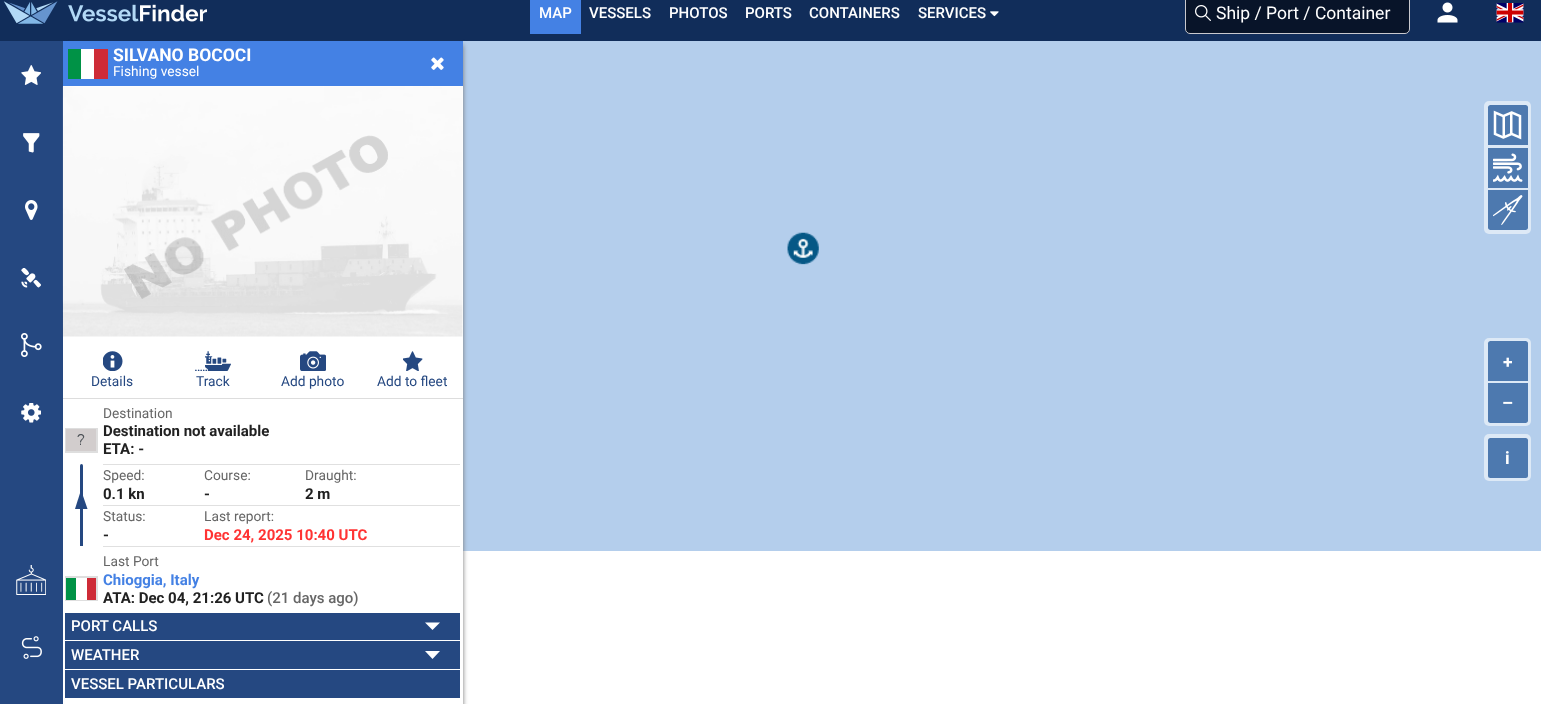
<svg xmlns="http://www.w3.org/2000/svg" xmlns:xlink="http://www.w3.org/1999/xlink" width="1541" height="704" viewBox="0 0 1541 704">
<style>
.cls-1{font:500 15px Roboto;fill:#ffffff}
.cls-2{font:17.5px Roboto;fill:#ffffff}
.cls-3{font:bold 17.5px Roboto;fill:#ffffff}
.cls-4{font:13.75px Roboto;fill:#ffffff}
.cls-5{font:13.75px Roboto;fill:#254881}
.cls-6{font:13.75px Roboto;fill:#666666}
.cls-7{font:bold 15px Roboto;fill:#212121}
.cls-8{font:bold 15px Roboto;fill:#ff3333}
.cls-9{font:bold 15px Roboto;fill:#4481e4}
.cls-10{font:500 15px Roboto;fill:#666666}
</style>
<rect width="100%" height="100%" fill="#ffffff"/>
<rect fill="#112d5a" x="0" y="0" width="1541" height="41"/>
<image xlink:href="image0.png" x="3" y="1" width="55" height="23"/>
<image xlink:href="image1.png" x="68" y="4" width="139" height="18"/>
<rect fill="#4481e4" x="530" y="0" width="51" height="34"/>
<image xlink:href="image2.png" x="990" y="11" width="9" height="6"/>
<rect fill="#081429" stroke="#c9c9ce" x="1185.5" y="-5.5" width="224" height="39" rx="4.5"/>
<image xlink:href="image3.png" x="1195" y="5" width="16" height="16"/>
<image xlink:href="image4.png" x="1437" y="2" width="21" height="21"/>
<image xlink:href="image5.png" x="1496" y="3" width="28" height="20"/>
<rect fill="#254881" x="0" y="41" width="63" height="663"/>
<image xlink:href="image6.png" x="21" y="65" width="20" height="20"/>
<image xlink:href="image7.png" x="23" y="133" width="17" height="20"/>
<image xlink:href="image8.png" x="25" y="200" width="13" height="20"/>
<image xlink:href="image9.png" x="21" y="268" width="20" height="20"/>
<image xlink:href="image10.png" x="21" y="333" width="21" height="24"/>
<image xlink:href="image11.png" x="21" y="403" width="20" height="20"/>
<image xlink:href="image12.png" x="16" y="565" width="30" height="30"/>
<image xlink:href="image13.png" x="21" y="636" width="21" height="23"/>
<rect fill="#b4ceec" x="463" y="41" width="1078" height="510"/>
<rect fill="#777777" filter="blur(2.5px)" x="70" y="45" width="393" height="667"/>
<rect fill="#ffffff" x="65" y="86" width="398" height="618"/>
<rect fill="#4481e4" x="63" y="41" width="400" height="45"/>
<rect fill="#009246" x="68" y="49" width="13" height="30"/>
<rect fill="#ffffff" x="81" y="49" width="13" height="30"/>
<rect fill="#ce2b37" x="94" y="49" width="14" height="30"/>
<image xlink:href="image14.png" x="431" y="57" width="13" height="13"/>
<image xlink:href="image15.png" x="62" y="86" width="401" height="251"/>
<rect fill="#dddddd" x="63" y="398" width="400" height="1"/>
<image xlink:href="image16.png" x="103" y="351" width="20" height="20"/>
<image xlink:href="image17.png" x="195" y="351" width="36" height="20"/>
<image xlink:href="image18.png" x="300" y="351" width="26" height="20"/>
<image xlink:href="image19.png" x="403" y="351" width="20" height="20"/>
<rect fill="#dedede" filter="blur(0.5px)" x="65" y="428" width="33" height="25"/>
<rect fill="#d2cdcd" x="66" y="429" width="30" height="22"/>
<path fill="#4f5459" d="M80 442.5C80 439 83 439 83 437C83 434.5 79 434.5 78.5 437H77.5C77.5 435 79 433.5 81 434C82 434 83 434.5 83.5 435C86 438 81.5 439 81 442.5ZM80 445V443.5H81V445Z"/>
<rect fill="#254881" x="80" y="464" width="3" height="82" rx="1.5"/>
<path fill="#254881" d="M87.5 509H75L81 490Z"/>
<rect fill="#254881" x="80" y="544" width="3" height="2"/>
<rect fill="#e0e0e0" x="103" y="464" width="357" height="1"/>
<rect fill="#e0e0e0" x="103" y="505" width="357" height="1"/>
<rect fill="#e0e0e0" x="103" y="546" width="357" height="1"/>
<rect fill="#dedede" filter="blur(0.5px)" x="65" y="576" width="33" height="25"/>
<rect fill="#ffffff" x="76" y="578" width="11" height="22"/>
<rect fill="#009246" x="66" y="578" width="10" height="22"/>
<rect fill="#ce2b37" x="87" y="578" width="9" height="22"/>
<rect fill="#254881" x="65" y="613" width="395" height="27"/>
<path fill="#ffffff" d="M425 622.5H440L432.5 630Z"/>
<rect fill="#254881" x="65" y="641" width="395" height="28"/>
<path fill="#ffffff" d="M425 651H440L432.5 659Z"/>
<rect fill="#254881" x="65" y="670" width="395" height="28"/>
<rect fill="#dde9f6" x="1484" y="101" width="47" height="133" rx="5"/>
<path fill="#4d79af" d="M1490.5 105H1525.5C1527 105 1528 106 1528 107.5V145H1488V107.5C1488 106 1489 105 1490.5 105Z"/>
<image xlink:href="image20.png" x="1493" y="110" width="29" height="30"/>
<rect fill="#4d79af" x="1488" y="148" width="40" height="40"/>
<image xlink:href="image21.png" x="1493" y="153" width="30" height="29"/>
<path fill="#4d79af" d="M1488 190H1528V227.5C1528 229 1527 230 1525.5 230H1490.5C1489 230 1488 229 1488 227.5Z"/>
<image xlink:href="image22.png" x="1493" y="195" width="30" height="30"/>
<image xlink:href="image23.png" x="787" y="232" width="32" height="33"/>
<rect fill="#dde9f6" x="1484" y="338" width="47" height="88" rx="5"/>
<path fill="#4d79af" d="M1490.5 341H1525.5C1527 341 1528 342 1528 343.5V381H1488V343.5C1488 342 1489 341 1490.5 341Z"/>
<path fill="#4d79af" d="M1488 383H1528V420.5C1528 422 1527 423 1525.5 423H1490.5C1489 423 1488 422 1488 420.5Z"/>
<rect fill="#dde9f6" x="1484" y="434" width="47" height="47" rx="5"/>
<rect fill="#4d79af" x="1488" y="438" width="40" height="40" rx="2.5"/>
<text class="cls-1" x="539" y="18">MAP</text>
<text class="cls-1" x="589" y="18">VESSELS</text>
<text class="cls-1" x="669" y="18">PHOTOS</text>
<text class="cls-1" x="745" y="18">PORTS</text>
<text class="cls-1" x="809" y="18">CONTAINERS</text>
<text class="cls-1" x="918" y="18">SERVICES</text>
<text class="cls-2" x="1216" y="19">Ship / Port / Container</text>
<text class="cls-3" x="113" y="61">SILVANO BOCOCI</text>
<text class="cls-4" x="113" y="76">Fishing vessel</text>
<text class="cls-5" x="91" y="386">Details</text>
<text class="cls-5" x="196" y="386">Track</text>
<text class="cls-5" x="281" y="386">Add photo</text>
<text class="cls-5" x="377" y="386">Add to fleet</text>
<text class="cls-6" x="103" y="418">Destination</text>
<text class="cls-7"><tspan x="103" y="436">Destination not available</tspan><tspan x="103" y="454">ETA: -</tspan></text>
<text class="cls-6" x="103" y="480">Speed:</text>
<text class="cls-7" x="103" y="499">0.1 kn</text>
<text class="cls-6" x="204" y="480">Course:</text>
<text class="cls-7" x="204" y="499">-</text>
<text class="cls-6" x="305" y="480">Draught:</text>
<text class="cls-7" x="305" y="499">2 m</text>
<text class="cls-6" x="103" y="521">Status:</text>
<text class="cls-7" x="103" y="540">-</text>
<text class="cls-6" x="204" y="521">Last report:</text>
<text class="cls-8" x="204" y="540">Dec 24, 2025 10:40 UTC</text>
<text class="cls-6" x="103" y="566">Last Port</text>
<text class="cls-9" x="103" y="585">Chioggia, Italy</text>
<text class="cls-7" x="103" y="603">ATA: Dec 04, 21:26 UTC</text>
<text class="cls-10" x="267" y="603">(21 days ago)</text>
<text class="cls-1"><tspan x="71" y="631">PORT CALLS</tspan><tspan x="71" y="660">WEATHER</tspan><tspan x="71" y="689">VESSEL PARTICULARS</tspan></text>
<text class="cls-3" x="1503" y="368">+</text>
<text class="cls-3" x="1502" y="409">–</text>
<text class="cls-3" x="1505" y="464">i</text>
</svg>
